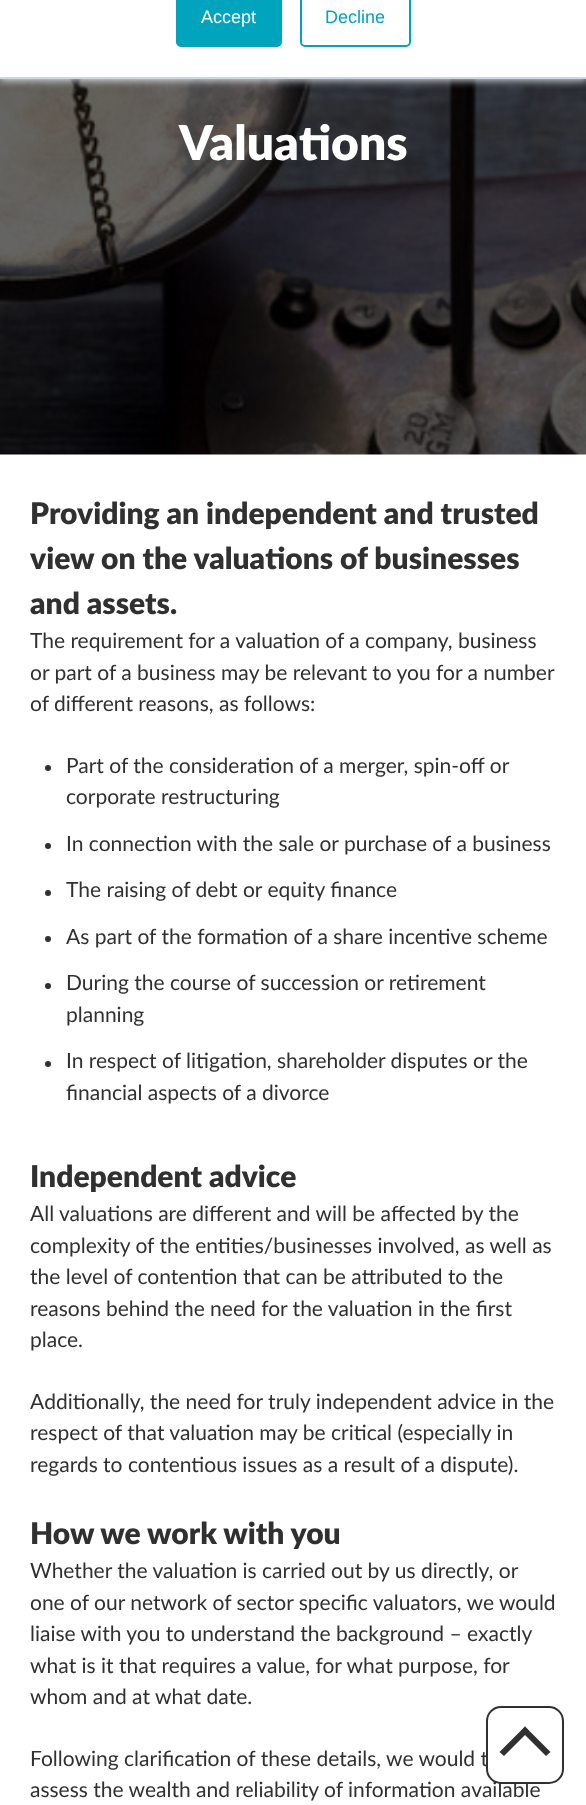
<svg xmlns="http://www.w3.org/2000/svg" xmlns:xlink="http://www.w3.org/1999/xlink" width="586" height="1805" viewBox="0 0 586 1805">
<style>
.cls-1{font:18px Liberation Sans;fill:#ffffff}
.cls-2{font:18px Liberation Sans;fill:#00a4bd}
.cls-3{font:900 48px Lato;fill:#ffffff}
.cls-4{font:900 30px Lato;fill:#303030}
.cls-5{font:21px Lato;fill:#303030}
</style>
<rect width="100%" height="100%" fill="#ffffff"/>
<image xlink:href="image0.png" x="0" y="79" width="586" height="376"/>
<rect fill="#eaf0f6" filter="blur(4px)" x="0" y="-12" width="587" height="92"/>
<rect fill="#ffffff" x="0" y="0" width="586" height="77"/>
<rect fill="#cbd6e2" x="0" y="77" width="586" height="2"/>
<rect fill="#00a4bd" stroke="#00a4bd" stroke-width="2" x="177" y="-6" width="104" height="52" rx="4"/>
<rect fill="none" stroke="#00a4bd" stroke-width="2" x="301" y="-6" width="109" height="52" rx="4"/>
<circle fill="#303030" cx="48" cy="768" r="3"/>
<circle fill="#303030" cx="48" cy="846" r="3"/>
<circle fill="#303030" cx="48" cy="893" r="3"/>
<circle fill="#303030" cx="48" cy="939" r="3"/>
<circle fill="#303030" cx="48" cy="986" r="3"/>
<circle fill="#303030" cx="48" cy="1064" r="3"/>
<text class="cls-1" x="201" y="23">Accept</text>
<text class="cls-2" x="325" y="23">Decline</text>
<text class="cls-3" x="179" y="160">Valuations</text>
<text class="cls-4"><tspan x="30" y="524">Providing an independent and trusted</tspan><tspan x="30" y="569">view on the valuations of businesses</tspan><tspan x="30" y="614">and assets.</tspan></text>
<text class="cls-5"><tspan x="30" y="648">The requirement for a valuation of a company, business</tspan><tspan x="30" y="680">or part of a business may be relevant to you for a number</tspan><tspan x="30" y="711">of different reasons, as follows:</tspan></text>
<text class="cls-5"><tspan x="66" y="773">Part of the consideration of a merger, spin-off or</tspan><tspan x="66" y="804">corporate restructuring</tspan></text>
<text class="cls-5" x="66" y="851">In connection with the sale or purchase of a business</text>
<text class="cls-5" x="66" y="897">The raising of debt or equity finance</text>
<text class="cls-5" x="66" y="944">As part of the formation of a share incentive scheme</text>
<text class="cls-5"><tspan x="66" y="990">During the course of succession or retirement</tspan><tspan x="66" y="1022">planning</tspan></text>
<text class="cls-5"><tspan x="66" y="1068">In respect of litigation, shareholder disputes or the</tspan><tspan x="66" y="1100">financial aspects of a divorce</tspan></text>
<text class="cls-4" x="30" y="1187">Independent advice</text>
<text class="cls-5"><tspan x="30" y="1221">All valuations are different and will be affected by the</tspan><tspan x="30" y="1253">complexity of the entities/businesses involved, as well as</tspan><tspan x="30" y="1284">the level of contention that can be attributed to the</tspan><tspan x="30" y="1316">reasons behind the need for the valuation in the first</tspan><tspan x="30" y="1347">place.</tspan></text>
<text class="cls-5"><tspan x="30" y="1409">Additionally, the need for truly independent advice in the</tspan><tspan x="30" y="1440">respect of that valuation may be critical (especially in</tspan><tspan x="30" y="1472">regards to contentious issues as a result of a dispute).</tspan></text>
<text class="cls-4" x="30" y="1544">How we work with you</text>
<text class="cls-5"><tspan x="30" y="1578">Whether the valuation is carried out by us directly, or</tspan><tspan x="30" y="1610">one of our network of sector specific valuators, we would</tspan><tspan x="30" y="1641">liaise with you to understand the background – exactly</tspan><tspan x="30" y="1673">what is it that requires a value, for what purpose, for</tspan><tspan x="30" y="1704">whom and at what date.</tspan></text>
<text class="cls-5"><tspan x="30" y="1766">Following clarification of these details, we would t</tspan><tspan x="30" y="1797">assess the wealth and reliability of information available</tspan></text>
<rect fill="#ffffff" stroke="#303030" stroke-width="2" x="487" y="1707" width="76" height="76" rx="14"/>
<path fill="#303030" d="M525 1726.5L550.5 1752L546 1756L521 1731Z"/>
<path fill="#303030" d="M525 1726.5L529 1731L504 1756L499.5 1752Z"/>
</svg>
